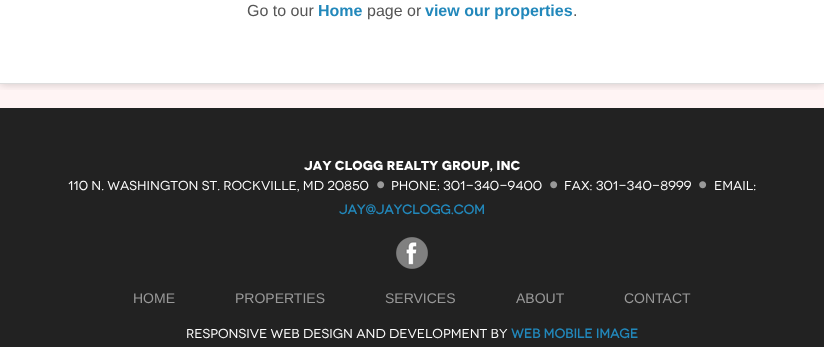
<svg xmlns="http://www.w3.org/2000/svg" xmlns:xlink="http://www.w3.org/1999/xlink" width="824" height="347" viewBox="0 0 824 347">
<style>
.cls-1{font:16px Liberation Sans;fill:#555555}
.cls-2{font:bold 16px Liberation Sans;fill:#2288bb}
.cls-3{font:bold 13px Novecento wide;fill:#ffffff}
.cls-4{font:13px Novecento wide;fill:#ffffff}
.cls-5{font:70px Novecento wide;fill:#999999}
.cls-6{font:bold 13px 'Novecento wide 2';fill:#2288bb}
.cls-7{font:14px Liberation Sans;fill:#999999}
</style>
<defs>
<clipPath id="clip1"><rect x="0" y="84" width="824" height="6"/></clipPath>
</defs>
<rect width="100%" height="100%" fill="#fff4f4"/>
<rect fill="#ffffff" x="0" y="0" width="824" height="83"/>
<g clip-path="url(#clip1)">
<rect fill="#000000" fill-opacity="0.2" filter="blur(5px)" x="0" y="-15" width="824" height="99"/>
</g>
<rect fill="#dddddd" x="0" y="83" width="824" height="1"/>
<rect fill="#222222" x="0" y="108" width="824" height="239"/>
<image xlink:href="image0.png" x="396" y="237" width="32" height="32"/>
<text class="cls-1" x="247" y="16">Go to our</text>
<text class="cls-2" x="318" y="16">Home</text>
<text class="cls-1" x="367" y="16">page or</text>
<text class="cls-2" x="425" y="16">view our properties</text>
<text class="cls-1" x="573" y="16">.</text>
<text class="cls-3" x="304" y="170">Jay Clogg Realty Group, Inc</text>
<text class="cls-4" x="68" y="190">110 N. WASHINGTON ST. ROCKVILLE, MD 20850</text>
<text class="cls-5" x="373" y="209">·</text>
<text class="cls-4" x="391" y="190">PHONE: 301-340-9400</text>
<text class="cls-5" x="546" y="209">·</text>
<text class="cls-4" x="564" y="190">FAX: 301-340-8999</text>
<text class="cls-5" x="695" y="209">·</text>
<text class="cls-4" x="714" y="190">EMAIL:</text>
<text class="cls-6" x="339" y="214">JAY@JAYCLOGG.COM</text>
<text class="cls-7" x="133" y="303">HOME</text>
<text class="cls-7" x="235" y="303">PROPERTIES</text>
<text class="cls-7" x="385" y="303">SERVICES</text>
<text class="cls-7" x="516" y="303">ABOUT</text>
<text class="cls-7" x="624" y="303">CONTACT</text>
<text class="cls-4" x="186" y="338">RESPONSIVE WEB DESIGN AND DEVELOPMENT BY</text>
<text class="cls-6" x="511" y="338">WEB MOBILE IMAGE</text>
</svg>
